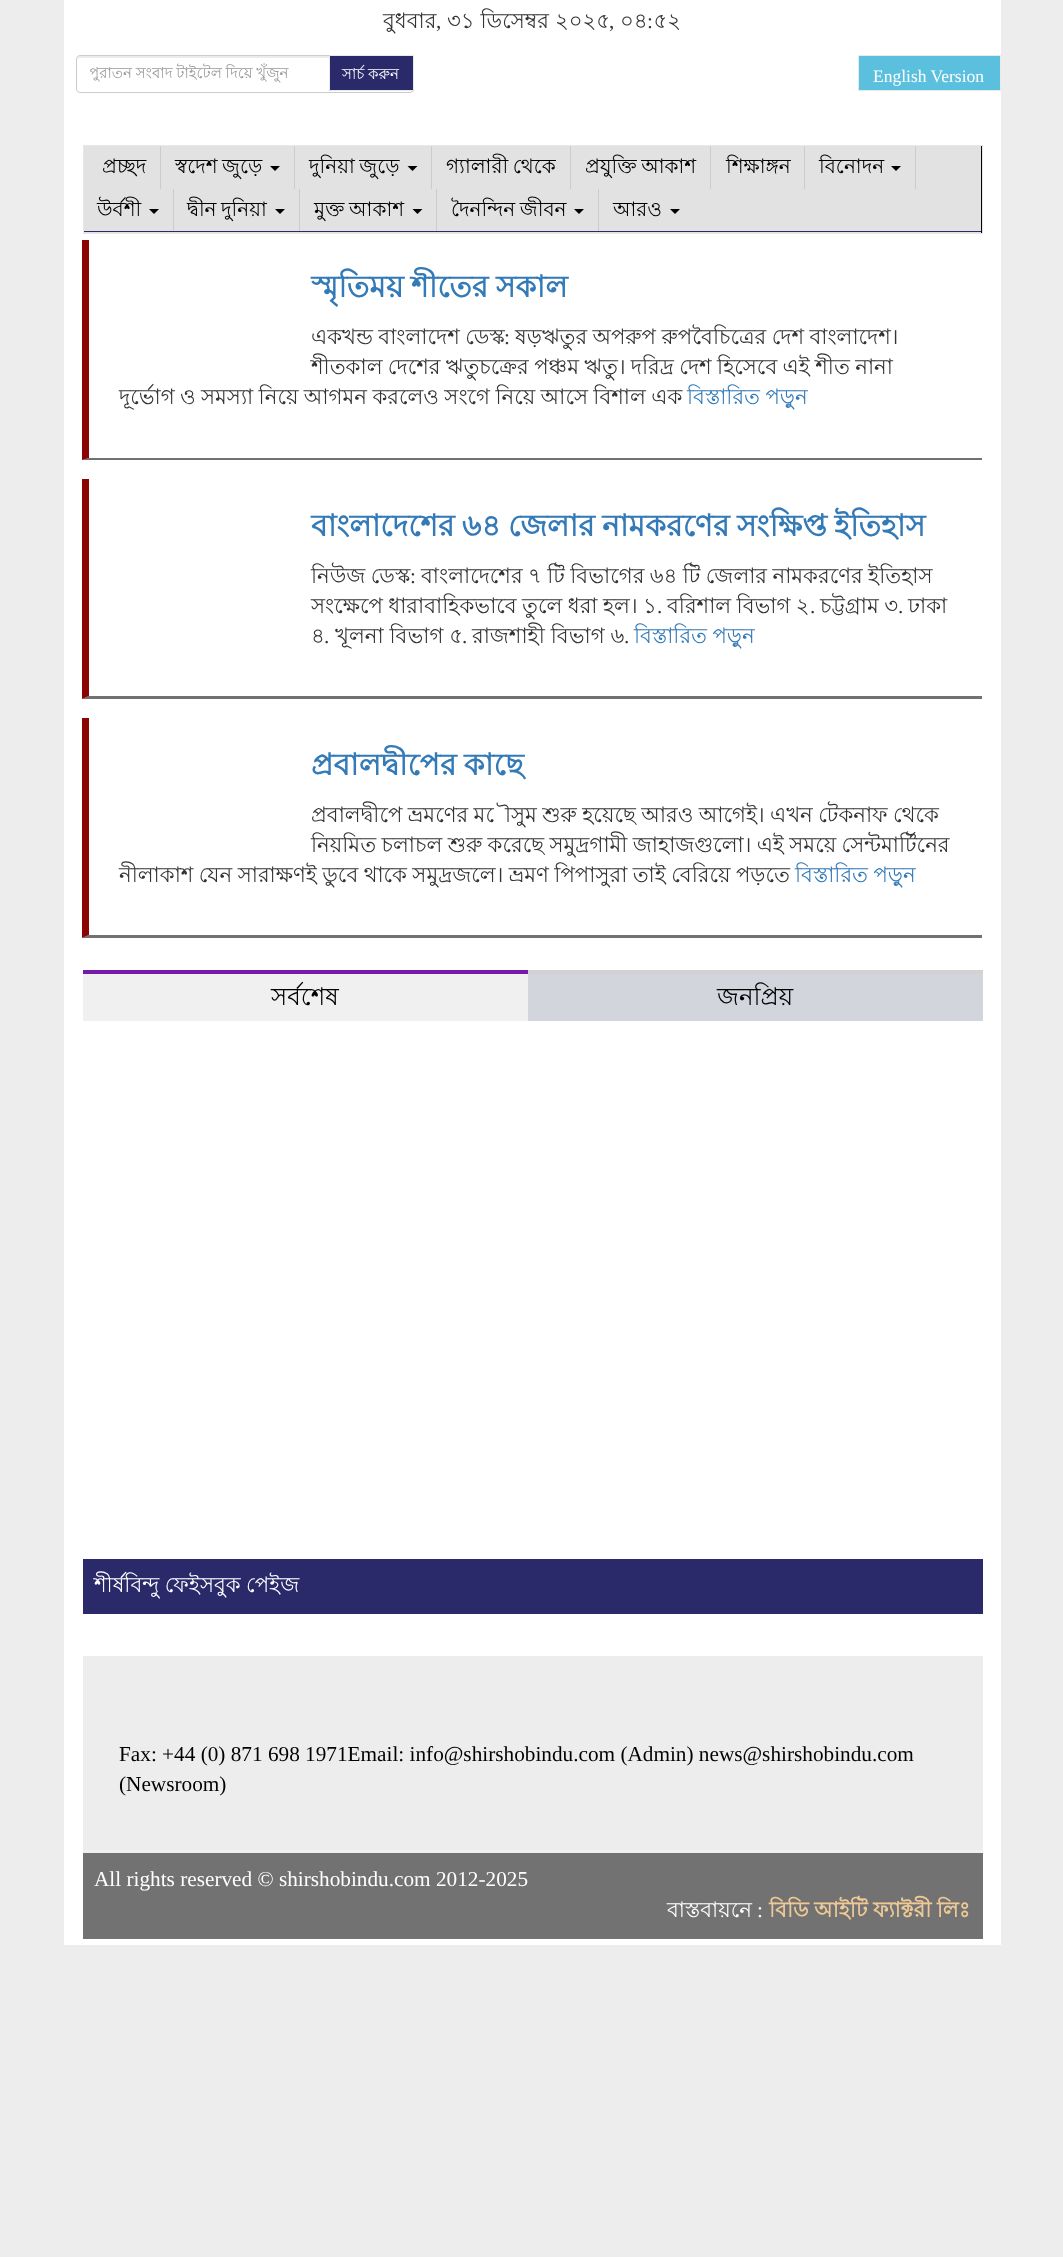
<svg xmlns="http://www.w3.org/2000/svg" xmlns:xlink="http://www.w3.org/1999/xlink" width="1063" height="2257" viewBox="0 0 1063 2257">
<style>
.cls-1{font:21.25px Lohit Bengali;fill:#333333}
.cls-2{font:21.25px Liberation Serif;fill:#333333}
.cls-3{font:15px Lohit Bengali;fill:#999999}
.cls-4{font:15px Lohit Bengali;fill:#ffffff}
.cls-5{font:17.5px Liberation Serif;fill:#ffffff}
.cls-6{font:20px Lohit Bengali;fill:#000000}
.cls-7{font:bold 30px Lohit Bengali;fill:#337ab7}
.cls-8{font:21.25px Lohit Bengali;fill:#337ab7}
.cls-9{font:24.5px Lohit Bengali;fill:#000000}
.cls-10{font:21.25px Lohit Bengali;fill:#ffffff}
.cls-11{font:21.25px Liberation Serif;fill:#000000}
.cls-12{font:21.25px Liberation Serif;fill:#ffffff}
.cls-13{font:bold 21.25px Lohit Bengali;fill:#eec995}
</style>
<defs>
<clipPath id="clip1"><rect x="90" y="63" width="305" height="25"/></clipPath>
</defs>
<rect width="100%" height="100%" fill="#ededed"/>
<rect fill="#ffffff" x="64" y="0" width="937" height="1945"/>
<path fill="#ececec" d="M80 58H410C411 58 412 59 412 60V91C413 90 413 89 413 88V58C413 57 412 56 410 56H80C79 56 78 57 78 58V60C78 59 79 58 80 58Z"/>
<rect fill="none" stroke="#cccccc" x="76.5" y="55.5" width="337" height="37" rx="3.5"/>
<rect fill="#2a2a6b" stroke="#e6eae9" x="329.5" y="55.5" width="84" height="35" rx="0.5"/>
<rect fill="#5bc0de" stroke="#e6eae9" x="858.5" y="55.5" width="142" height="35" rx="0.5"/>
<rect fill="#040404" x="981" y="146" width="1" height="87"/>
<rect fill="none" stroke="#e7e7e7" x="83.5" y="145.5" width="899" height="88"/>
<rect fill="#e2e2e2" x="84" y="146" width="897" height="87"/>
<rect fill="#2a2a6b" x="84" y="231" width="897" height="1"/>
<rect fill="#cccccc" x="160" y="146" width="1" height="43"/>
<rect fill="#cccccc" x="294" y="146" width="1" height="43"/>
<path fill="#000000" d="M270 166H280L275 171Z"/>
<rect fill="#cccccc" x="431" y="146" width="1" height="43"/>
<path fill="#000000" d="M407.5 166H417.5L412.5 171Z"/>
<rect fill="#cccccc" x="570" y="146" width="1" height="43"/>
<rect fill="#cccccc" x="710" y="146" width="1" height="43"/>
<rect fill="#cccccc" x="804" y="146" width="1" height="43"/>
<rect fill="#cccccc" x="915" y="146" width="1" height="43"/>
<path fill="#000000" d="M891 166H901L896 171Z"/>
<rect fill="#cccccc" x="173" y="189" width="1" height="42"/>
<path fill="#000000" d="M149 209H159L154 214Z"/>
<rect fill="#cccccc" x="299" y="189" width="1" height="42"/>
<path fill="#000000" d="M275 209H285L280 214Z"/>
<rect fill="#cccccc" x="436" y="189" width="1" height="42"/>
<path fill="#000000" d="M412.5 209H422.5L417.5 214Z"/>
<rect fill="#cccccc" x="598" y="189" width="1" height="42"/>
<path fill="#000000" d="M574 209H584L579 214Z"/>
<path fill="#000000" d="M670 209H680L675 214Z"/>
<path fill="#737070" d="M982 460H82L89 458H982Z"/>
<path fill="#8c0303" d="M82 460V240H89V458Z"/>
<path fill="#737070" d="M982 699H82L89 696H982Z"/>
<path fill="#8c0303" d="M82 699V479H89V696Z"/>
<path fill="#737070" d="M982 938H82L89 935H982Z"/>
<path fill="#8c0303" d="M82 938V718H89V935Z"/>
<rect fill="#d2d5db" x="528" y="974" width="455" height="47"/>
<rect fill="#f0f0f0" x="83" y="974" width="445" height="47"/>
<rect fill="#7719aa" x="83" y="970" width="445" height="4"/>
<rect fill="#d2d2d2" x="528" y="970" width="455" height="4"/>
<rect fill="#2a2a6b" x="83" y="1559" width="900" height="55"/>
<rect fill="#ededed" x="83" y="1656" width="900" height="194"/>
<rect fill="#f0f0f0" x="83" y="1850" width="900" height="3"/>
<rect fill="#727272" x="83" y="1853" width="900" height="86"/>
<text class="cls-1" x="383" y="28">বুধবার</text>
<text class="cls-1" x="447" y="28">৩১ ডিসেম্বর ২০২৫</text>
<text class="cls-1" x="620" y="28">০৪ ৫২</text>
<text class="cls-2" x="436" y="28">,</text>
<text class="cls-2" x="609" y="28">,</text>
<text class="cls-2" x="647" y="28">:</text>
<g clip-path="url(#clip1)">
<text class="cls-3" x="89" y="78" word-spacing="-0.5">পুরাতন সংবাদ টাইটেল দিয়ে খুঁজুন</text>
</g>
<text class="cls-4" x="342" y="79" word-spacing="-0.5">সার্চ করুন</text>
<text class="cls-5" x="873" y="82">English Version</text>
<text class="cls-6" x="102" y="173">প্রচ্ছদ</text>
<text class="cls-6" x="175" y="173" word-spacing="-1">স্বদেশ জুড়ে</text>
<text class="cls-6" x="309" y="173" word-spacing="-1">দুনিয়া জুড়ে</text>
<text class="cls-6" x="446" y="173" word-spacing="-1">গ্যালারী থেকে</text>
<text class="cls-6" x="585" y="173" word-spacing="-1">প্রযুক্তি আকাশ</text>
<text class="cls-6" x="726" y="173">শিক্ষাঙ্গন</text>
<text class="cls-6" x="819" y="173">বিনোদন</text>
<text class="cls-6" x="97" y="216">উর্বশী</text>
<text class="cls-6" x="187" y="216" word-spacing="-1">দ্বীন দুনিয়া</text>
<text class="cls-6" x="314" y="216" word-spacing="-1">মুক্ত আকাশ</text>
<text class="cls-6" x="451" y="216" word-spacing="-1">দৈনন্দিন জীবন</text>
<text class="cls-6" x="613" y="216">আরও</text>
<text class="cls-7" x="311" y="297" word-spacing="-1">স্মৃতিময় শীতের সকাল</text>
<text class="cls-1" x="311" y="344" word-spacing="-0.5">একখন্ড বাংলাদেশ ডেস্ক</text>
<text class="cls-2" x="504" y="344">:</text>
<text class="cls-1" x="515" y="344" word-spacing="-0.5">ষড়ঋতুর অপরুপ রুপবৈচিত্রের দেশ বাংলাদেশ।</text>
<text class="cls-1" x="311" y="374" word-spacing="-0.5">শীতকাল দেশের ঋতুচক্রের পঞ্চম ঋতু। দরিদ্র দেশ হিসেবে এই শীত নানা</text>
<text class="cls-1" x="119" y="404" word-spacing="-0.5">দূর্ভোগ ও সমস্যা নিয়ে আগমন করলেও সংগে নিয়ে আসে বিশাল এক</text>
<text class="cls-8" x="687" y="404" word-spacing="-0.5">বিস্তারিত পড়ুন</text>
<text class="cls-7" x="311" y="536" word-spacing="-1">বাংলাদেশের ৬৪ জেলার নামকরণের সংক্ষিপ্ত ইতিহাস</text>
<text class="cls-1" x="311" y="583" word-spacing="-0.5">নিউজ ডেস্ক</text>
<text class="cls-2" x="410" y="583">:</text>
<text class="cls-1" x="421" y="583" word-spacing="-0.5">বাংলাদেশের ৭ টি বিভাগের ৬৪ টি জেলার নামকরণের ইতিহাস</text>
<text class="cls-1" x="311" y="613" word-spacing="-0.5">সংক্ষেপে ধারাবাহিকভাবে তুলে ধরা হল। ১</text>
<text class="cls-2" x="657" y="613">.</text>
<text class="cls-1" x="667" y="613" word-spacing="-0.5">বরিশাল বিভাগ ২</text>
<text class="cls-2" x="810" y="613">.</text>
<text class="cls-1" x="820" y="613" word-spacing="-0.5">চট্টগ্রাম ৩</text>
<text class="cls-2" x="898" y="613">.</text>
<text class="cls-1" x="908" y="613">ঢাকা</text>
<text class="cls-1" x="311" y="643">৪</text>
<text class="cls-1" x="472" y="643">রাজশাহী বিভাগ ৬</text>
<text class="cls-8" x="634" y="643" word-spacing="-0.5">বিস্তারিত পড়ুন</text>
<text class="cls-2" x="324" y="643">.</text>
<text class="cls-1" x="335" y="643">খূলনা বিভাগ ৫</text>
<text class="cls-2" x="462" y="643">.</text>
<text class="cls-2" x="624" y="643">.</text>
<text class="cls-7" x="311" y="775" word-spacing="-1">প্রবালদ্বীপের কাছে</text>
<text class="cls-1"><tspan x="311" y="822" word-spacing="-0.5">প্রবালদ্বীপে ভ্রমণের মৌসুম শুরু হয়েছে আরও আগেই। এখন টেকনাফ থেকে</tspan><tspan x="311" y="852" word-spacing="-0.5">নিয়মিত চলাচল শুরু করেছে সমুদ্রগামী জাহাজগুলো। এই সময়ে সেন্টমার্টিনের</tspan></text>
<text class="cls-1" x="119" y="882" word-spacing="-0.5">নীলাকাশ যেন সারাক্ষণই ডুবে থাকে সমুদ্রজলে। ভ্রমণ পিপাসুরা তাই বেরিয়ে পড়তে</text>
<text class="cls-8" x="795" y="882" word-spacing="-0.5">বিস্তারিত পড়ুন</text>
<text class="cls-9" x="271" y="1005">সর্বশেষ</text>
<text class="cls-9" x="717" y="1005">জনপ্রিয়</text>
<text class="cls-10" x="94" y="1592" word-spacing="-0.5">শীর্ষবিন্দু ফেইসবুক পেইজ</text>
<text class="cls-11"><tspan x="119" y="1761">Fax: +44 (0) 871 698 1971Email: info@shirshobindu.com (Admin) news@shirshobindu.com</tspan><tspan x="119" y="1791">(Newsroom)</tspan></text>
<text class="cls-12" x="94" y="1886">All rights reserved © shirshobindu.com 2012-2025</text>
<text class="cls-10" x="667" y="1917">বাস্তবায়নে</text>
<text class="cls-12" x="757" y="1917">:</text>
<text class="cls-13" x="769" y="1917" word-spacing="-0.5">বিডি আইটি ফ্যাক্টরী লিঃ</text>
</svg>
